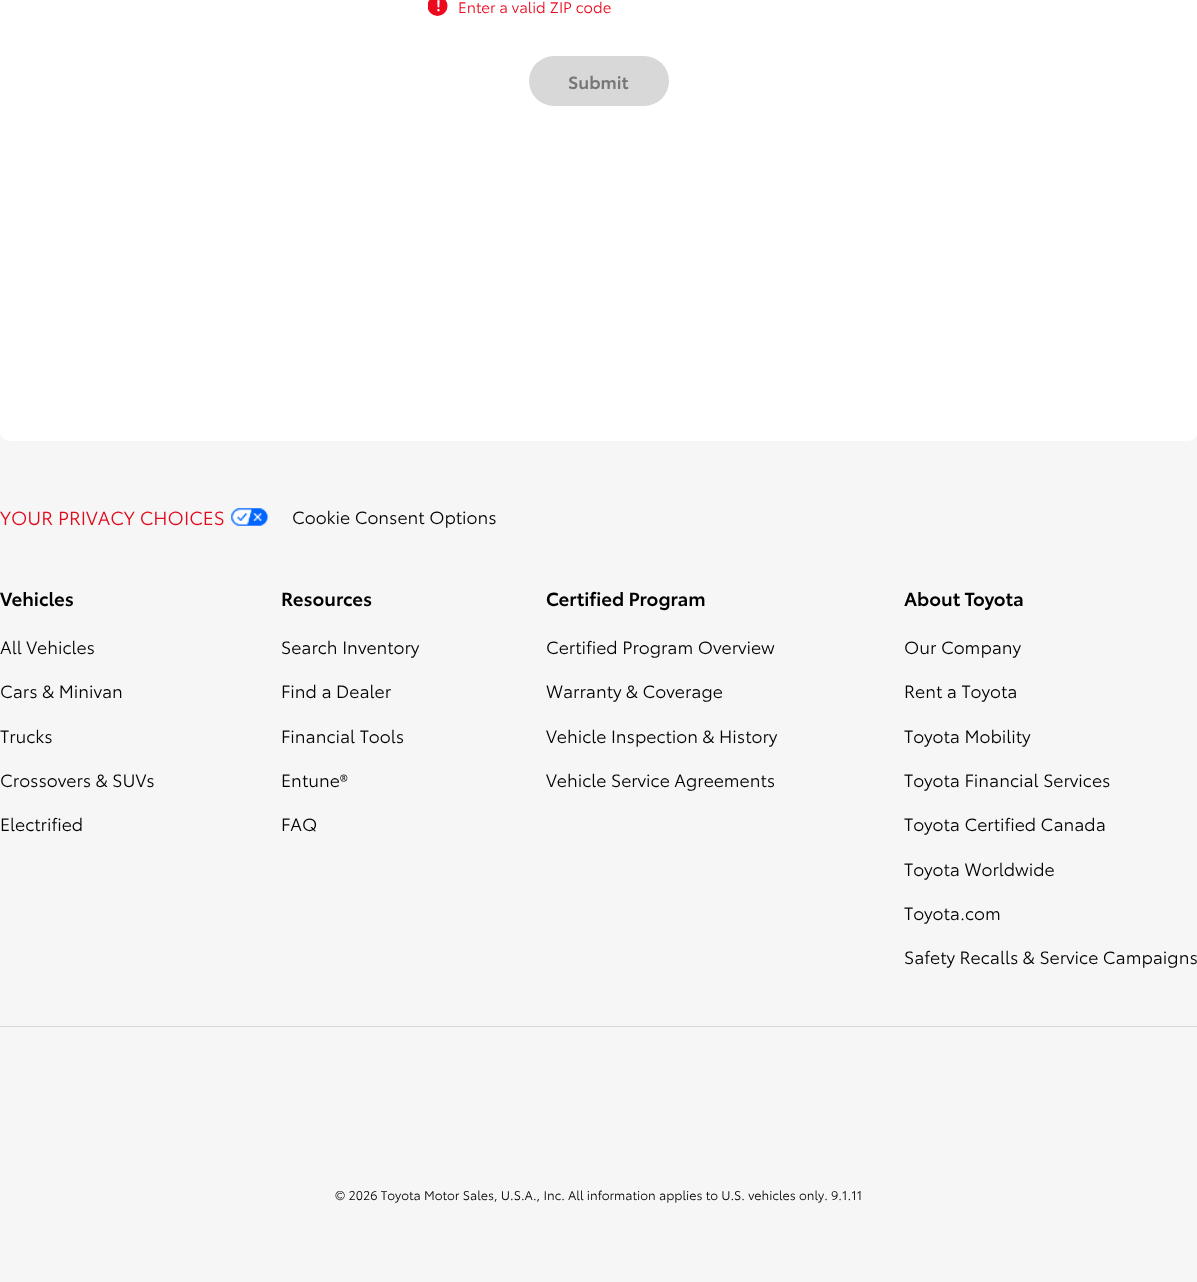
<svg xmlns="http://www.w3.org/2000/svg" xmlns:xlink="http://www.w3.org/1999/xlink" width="1197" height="1282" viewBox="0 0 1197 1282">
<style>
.cls-1{font:600 15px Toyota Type;fill:#ffffff}
.cls-2{font:15px Toyota Type;fill:#eb0a1e}
.cls-3{font:600 17.5px Toyota Type;fill:#767676}
.cls-4{font:18.75px Toyota Type;fill:#e10a1d}
.cls-5{font:17.5px Toyota Type;fill:#000000}
.cls-6{font:600 18.75px Toyota Type;fill:#000000}
.cls-7{font:12.5px Toyota Type;fill:#000000}
</style>
<defs>
<clipPath id="clip1"><rect x="428" y="0" width="20" height="16"/></clipPath>
</defs>
<rect width="100%" height="100%" fill="#ffffff"/>
<rect fill="#f6f6f6" x="0" y="433" width="1197" height="849"/>
<rect fill="#ffffff" x="0" y="-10" width="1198" height="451" rx="10"/>
<g clip-path="url(#clip1)">
<circle fill="#eb0a1e" cx="437.5" cy="6" r="10"/>
</g>
<rect fill="#d8d8d8" x="529" y="56" width="140" height="50" rx="25"/>
<image xlink:href="image0.png" x="231" y="508" width="37" height="18"/>
<rect fill="#d8d8d8" x="0" y="1026" width="1197" height="1"/>
<text class="cls-1" x="436" y="11">!</text>
<text class="cls-2" x="458" y="13">Enter a valid ZIP code</text>
<text class="cls-3" x="568" y="89">Submit</text>
<text class="cls-4" x="0" y="525">YOUR PRIVACY CHOICES</text>
<text class="cls-5" x="292" y="524">Cookie Consent Options</text>
<text class="cls-6" x="0" y="606">Vehicles</text>
<text class="cls-5" x="0" y="654">All Vehicles</text>
<text class="cls-5" x="0" y="698">Cars &amp; Minivan</text>
<text class="cls-5" x="0" y="743">Trucks</text>
<text class="cls-5" x="0" y="787">Crossovers &amp; SUVs</text>
<text class="cls-5" x="0" y="831">Electrified</text>
<text class="cls-6" x="281" y="606">Resources</text>
<text class="cls-5" x="281" y="654">Search Inventory</text>
<text class="cls-5" x="281" y="698">Find a Dealer</text>
<text class="cls-5" x="281" y="743">Financial Tools</text>
<text class="cls-5" x="281" y="787">Entune®</text>
<text class="cls-5" x="281" y="831">FAQ</text>
<text class="cls-6" x="546" y="606">Certified Program</text>
<text class="cls-5" x="546" y="654">Certified Program Overview</text>
<text class="cls-5" x="546" y="698">Warranty &amp; Coverage</text>
<text class="cls-5" x="546" y="743">Vehicle Inspection &amp; History</text>
<text class="cls-5" x="546" y="787">Vehicle Service Agreements</text>
<text class="cls-6" x="904" y="606">About Toyota</text>
<text class="cls-5" x="904" y="654">Our Company</text>
<text class="cls-5" x="904" y="698">Rent a Toyota</text>
<text class="cls-5" x="904" y="743">Toyota Mobility</text>
<text class="cls-5" x="904" y="787">Toyota Financial Services</text>
<text class="cls-5" x="904" y="831">Toyota Certified Canada</text>
<text class="cls-5" x="904" y="876">Toyota Worldwide</text>
<text class="cls-5" x="904" y="920">Toyota.com</text>
<text class="cls-5" x="904" y="964">Safety Recalls &amp; Service Campaigns</text>
<text class="cls-7" x="335" y="1200">© 2026 Toyota Motor Sales, U.S.A., Inc. All information applies to U.S. vehicles only. 9.1.11</text>
</svg>
